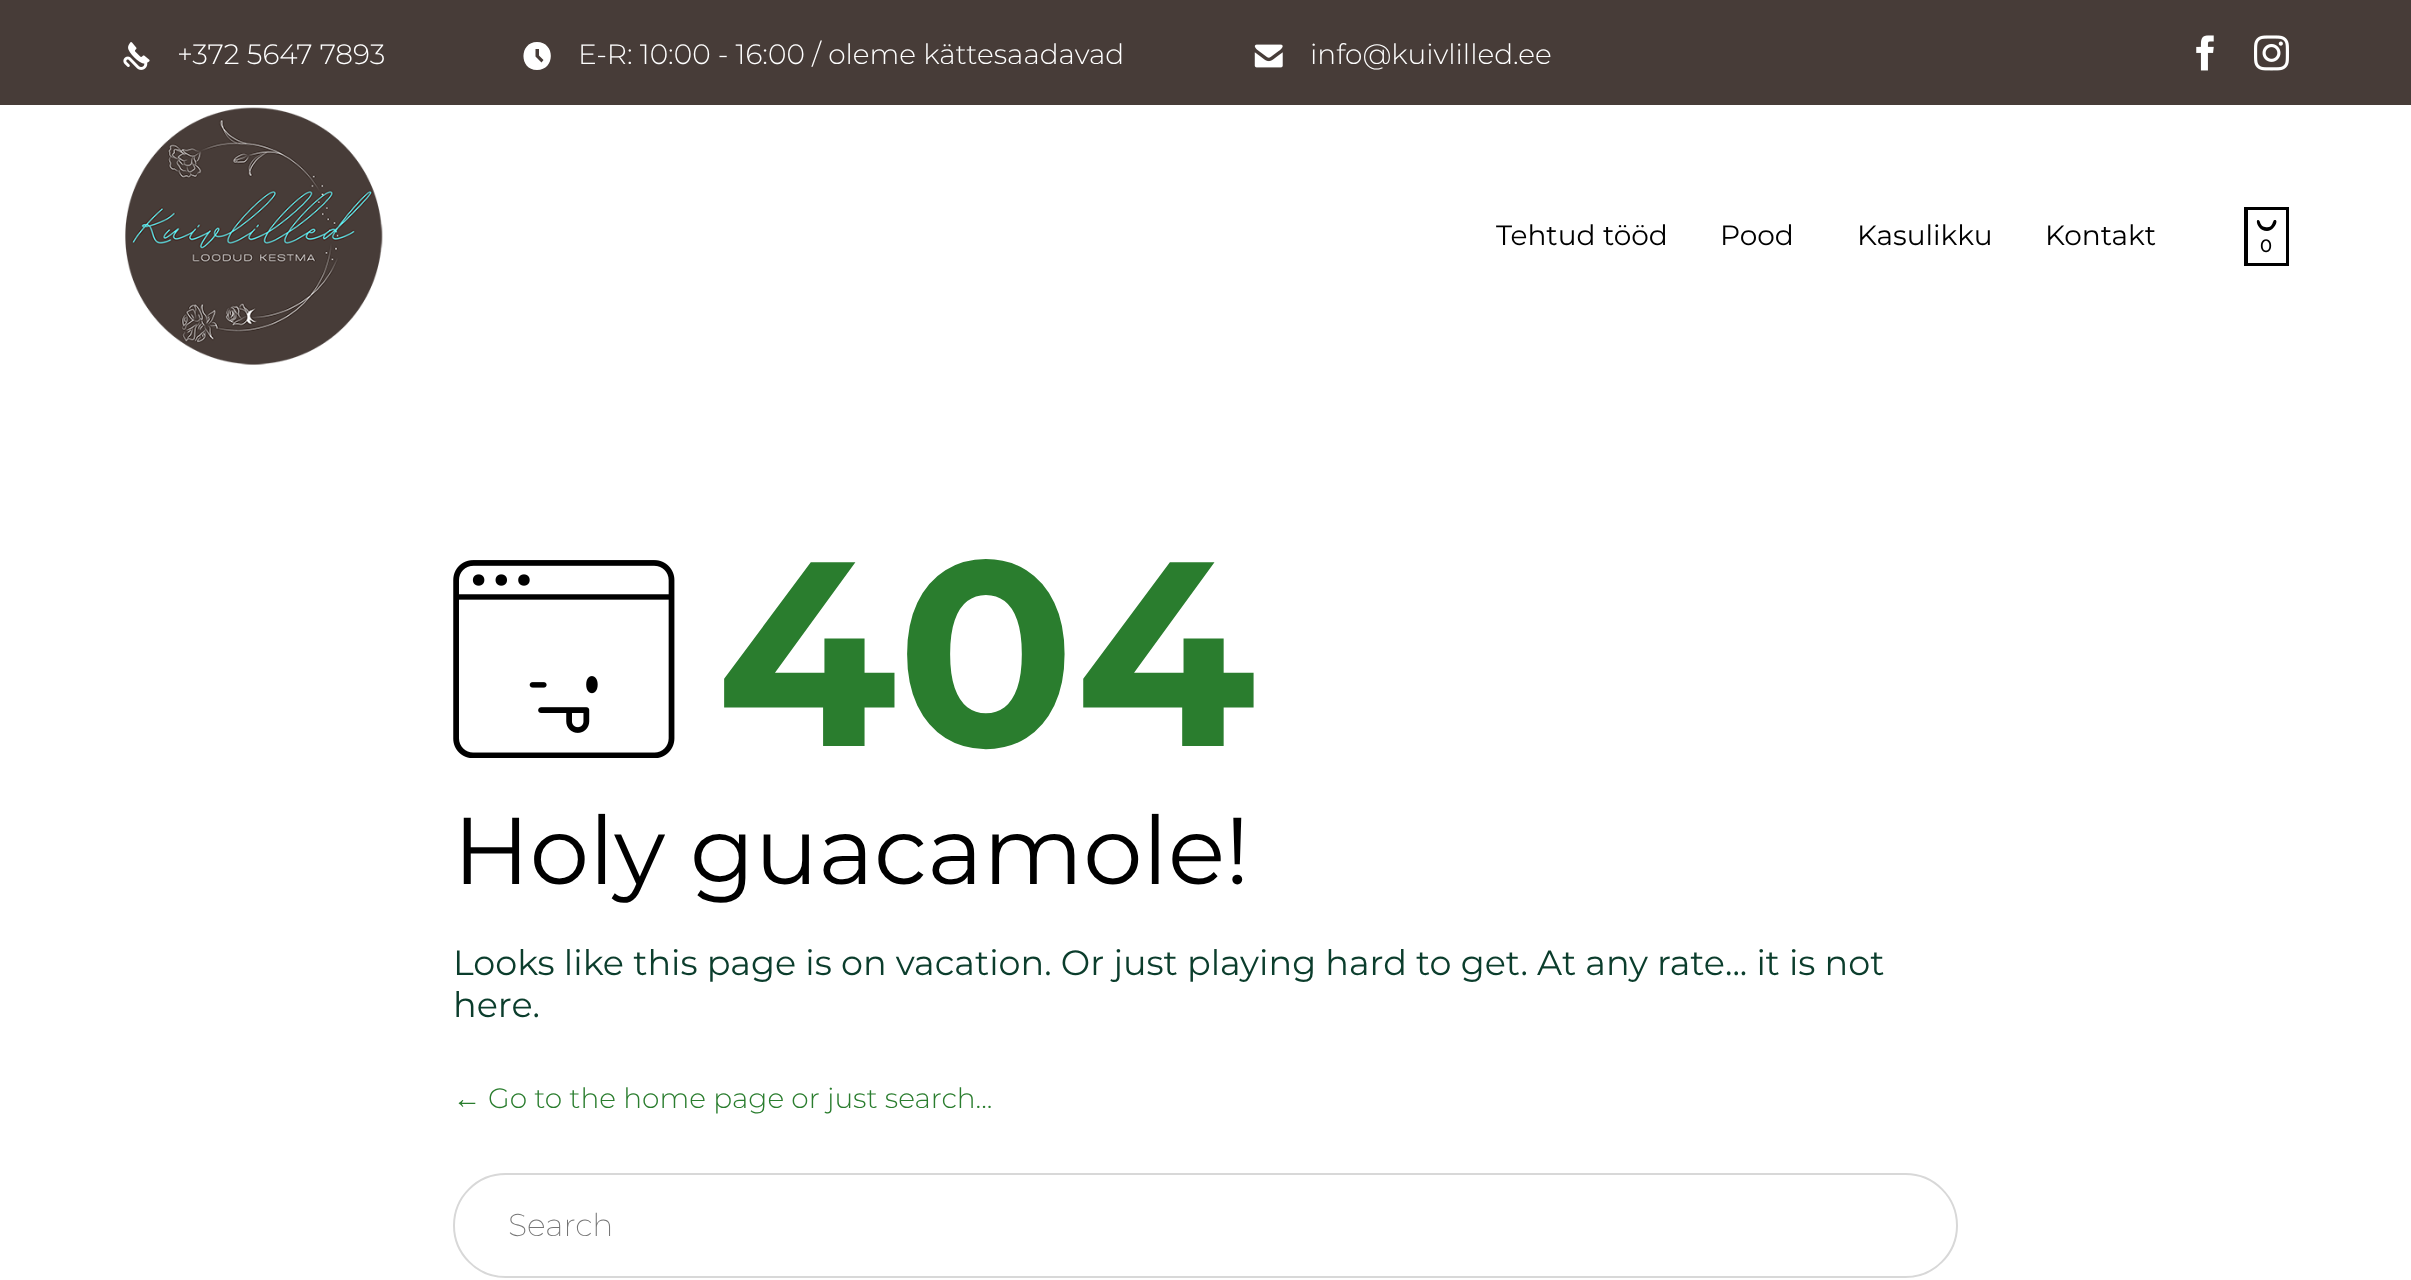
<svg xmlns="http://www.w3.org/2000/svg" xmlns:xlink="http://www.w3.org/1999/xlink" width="2411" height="1280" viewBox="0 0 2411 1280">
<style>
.cls-1{font:300 28px Montserrat;fill:#ffffff}
.cls-2{font:28px Montserrat;fill:#000000}
.cls-3{font:500 18px Montserrat;fill:#000000}
.cls-4{font:bold 262.5px Montserrat;fill:#2a7d2e}
.cls-5{font:94.5px Montserrat;fill:#000000}
.cls-6{font:35px Montserrat;fill:#0b3d2c}
.cls-7{font:28px Liberation Serif;fill:#2a7d2e}
.cls-8{font:300 28px Montserrat;fill:#2a7d2e}
.cls-9{font:200 31.5px Montserrat;fill:#757575}
</style>
<rect width="100%" height="100%" fill="#ffffff"/>
<rect fill="#473c38" x="0" y="0" width="2411" height="105"/>
<image xlink:href="image0.png" x="123" y="42" width="27" height="28"/>
<path fill="#ffffff" d="M537 42C519 42 519 70 537 70C555.5 70 555.5 42 537 42ZM541.5 62.5L535.5 56.5V49H539V55.5L543.5 60Z"/>
<image xlink:href="image1.png" x="1254" y="44" width="29" height="24"/>
<image xlink:href="image2.png" x="2196" y="35" width="18" height="36"/>
<image xlink:href="image3.png" x="2254" y="35" width="35" height="36"/>
<image xlink:href="image4.png" x="125" y="107" width="258" height="258"/>
<path fill="#000000" d="M2244 207V266H2289V207ZM2286 263H2248V210H2286ZM2267 231C2274 231 2279 220 2275 220C2272 219 2274 229 2265 227C2259 226 2261 220 2258 220C2255 220 2258 231 2267 231Z"/>
<image xlink:href="image5.png" x="453" y="560" width="222" height="198"/>
<rect fill="none" stroke="#d8d8d8" stroke-width="2" x="454" y="1174" width="1503" height="103" rx="51.5"/>
<text class="cls-1" x="177" y="64">+372 5647 7893</text>
<text class="cls-1" x="578" y="64">E-R: 10:00 - 16:00 / oleme kättesaadavad</text>
<text class="cls-1" x="1310" y="64">info@kuivlilled.ee</text>
<text class="cls-2" x="1496" y="245">Tehtud tööd</text>
<text class="cls-2" x="1720" y="245">Pood</text>
<text class="cls-2" x="1857" y="245">Kasulikku</text>
<text class="cls-2" x="2045" y="245">Kontakt</text>
<text class="cls-3" x="2260" y="252">0</text>
<text class="cls-4" x="716" y="746">404</text>
<text class="cls-5" x="453" y="884">Holy guacamole!</text>
<text class="cls-6"><tspan x="453" y="975">Looks like this page is on vacation. Or just playing hard to get. At any rate... it is not</tspan><tspan x="453" y="1017">here.</tspan></text>
<text class="cls-7" x="453" y="1108">←</text>
<text class="cls-8" x="488" y="1108">Go to the home page or just search...</text>
<text class="cls-9" x="508" y="1236">Search</text>
</svg>
